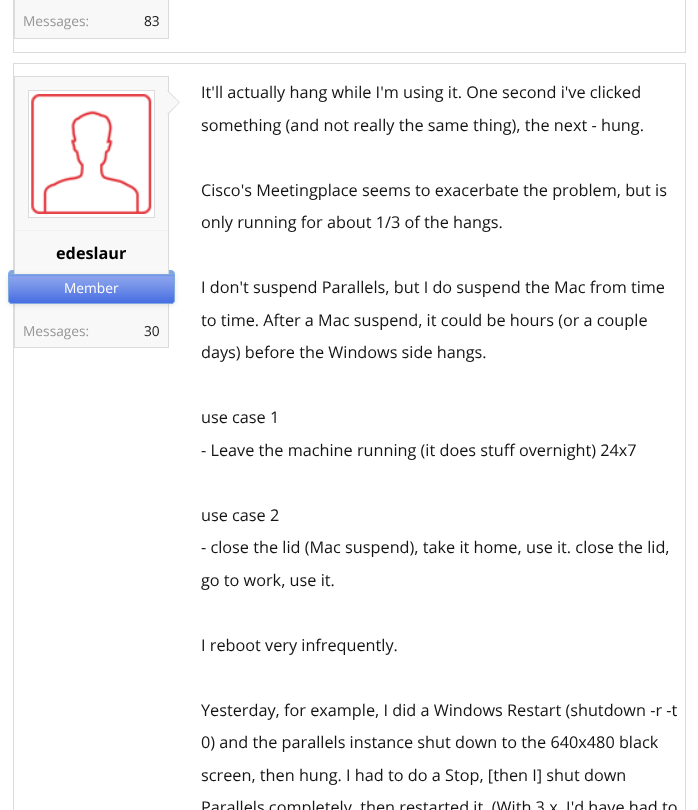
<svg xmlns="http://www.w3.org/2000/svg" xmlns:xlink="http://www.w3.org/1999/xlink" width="698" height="810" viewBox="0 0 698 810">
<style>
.cls-1{font:13.75px Open Sans;fill:#969696}
.cls-2{font:13.75px Open Sans;fill:#141414}
.cls-3{font:bold 16.25px Open Sans;fill:#000000}
.cls-4{font:13.75px Open Sans;fill:#ffffff}
.cls-5{font:16.25px Open Sans;fill:#141414}
</style>
<rect width="100%" height="100%" fill="#ffffff"/>
<rect fill="none" stroke="#dbdbdb" x="13.5" y="-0.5" width="672" height="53"/>
<rect fill="#f8f8f8" stroke="#dbdbdb" x="14.5" y="-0.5" width="154" height="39"/>
<rect fill="none" stroke="#dbdbdb" x="13.5" y="63.5" width="672" height="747"/>
<rect fill="#f8f8f8" stroke="#dbdbdb" x="14.5" y="76.5" width="154" height="271"/>
<rect fill="#ffffff" stroke="#dbdbdb" x="28.5" y="90.5" width="126" height="127"/>
<image xlink:href="image0.png" x="31" y="94" width="121" height="120"/>
<path fill="#dbdbdb" d="M167.5 115V90L180 102.5Z"/>
<path fill="#f8f8f8" d="M166 115V90L179 102.5Z"/>
<rect fill="#f1f1f1" x="15" y="230" width="153" height="1"/>
<rect fill="#000000" fill-opacity="0.1" filter="blur(2.5px)" x="8" y="275" width="167" height="30" rx="4"/>
<path fill="#4169e1" d="M8 274H175V300C175 302 173 304 171 304H12C10 304 8 302 8 300Z"/>
<image xlink:href="image1.png" x="8" y="275" width="167" height="29"/>
<path fill="none" stroke="#81a9e1" d="M8.5 274.5H174.5V300C174.5 302 173 303.5 171 303.5H12C10 303.5 8.5 302 8.5 300Z"/>
<path fill="#81a9e1" d="M12 270H14V275H8V274C8 272 10 270 12 270Z"/>
<path fill="#81a9e1" d="M169 270H171C173 270 175 272 175 274V275H169Z"/>
<text class="cls-1" x="23" y="26">Messages:</text>
<text class="cls-2" x="144" y="26">83</text>
<text class="cls-3" x="56" y="259">edeslaur</text>
<text class="cls-4" x="64" y="293">Member</text>
<text class="cls-1" x="23" y="336">Messages:</text>
<text class="cls-2" x="144" y="336">30</text>
<text class="cls-5" x="201" y="98">It'll actually hang while I'm using it. One second i've clicked</text>
<text class="cls-5" x="201" y="131">something (and not really the same thing), the next - hung.</text>
<text class="cls-5"><tspan x="201" y="196">Cisco's Meetingplace seems to exacerbate the problem, but is</tspan><tspan x="201" y="228">only running for about 1/3 of the hangs.</tspan></text>
<text class="cls-5" x="201" y="293">I don't suspend Parallels, but I do suspend the Mac from time</text>
<text class="cls-5"><tspan x="201" y="326">to time. After a Mac suspend, it could be hours (or a couple</tspan><tspan x="201" y="358">days) before the Windows side hangs.</tspan></text>
<text class="cls-5" x="201" y="423">use case 1</text>
<text class="cls-5" x="201" y="456">- Leave the machine running (it does stuff overnight) 24x7</text>
<text class="cls-5"><tspan x="201" y="521">use case 2</tspan><tspan x="201" y="553">- close the lid (Mac suspend), take it home, use it. close the lid,</tspan></text>
<text class="cls-5" x="201" y="586">go to work, use it.</text>
<text class="cls-5" x="201" y="651">I reboot very infrequently.</text>
<text class="cls-5"><tspan x="201" y="716">Yesterday, for example, I did a Windows Restart (shutdown -r -t</tspan><tspan x="201" y="748">0) and the parallels instance shut down to the 640x480 black</tspan></text>
<text class="cls-5"><tspan x="201" y="781">screen, then hung. I had to do a Stop, [then I] shut down</tspan><tspan x="201" y="813">Parallels completely, then restarted it. (With 3.x, I'd have had to</tspan></text>
</svg>
